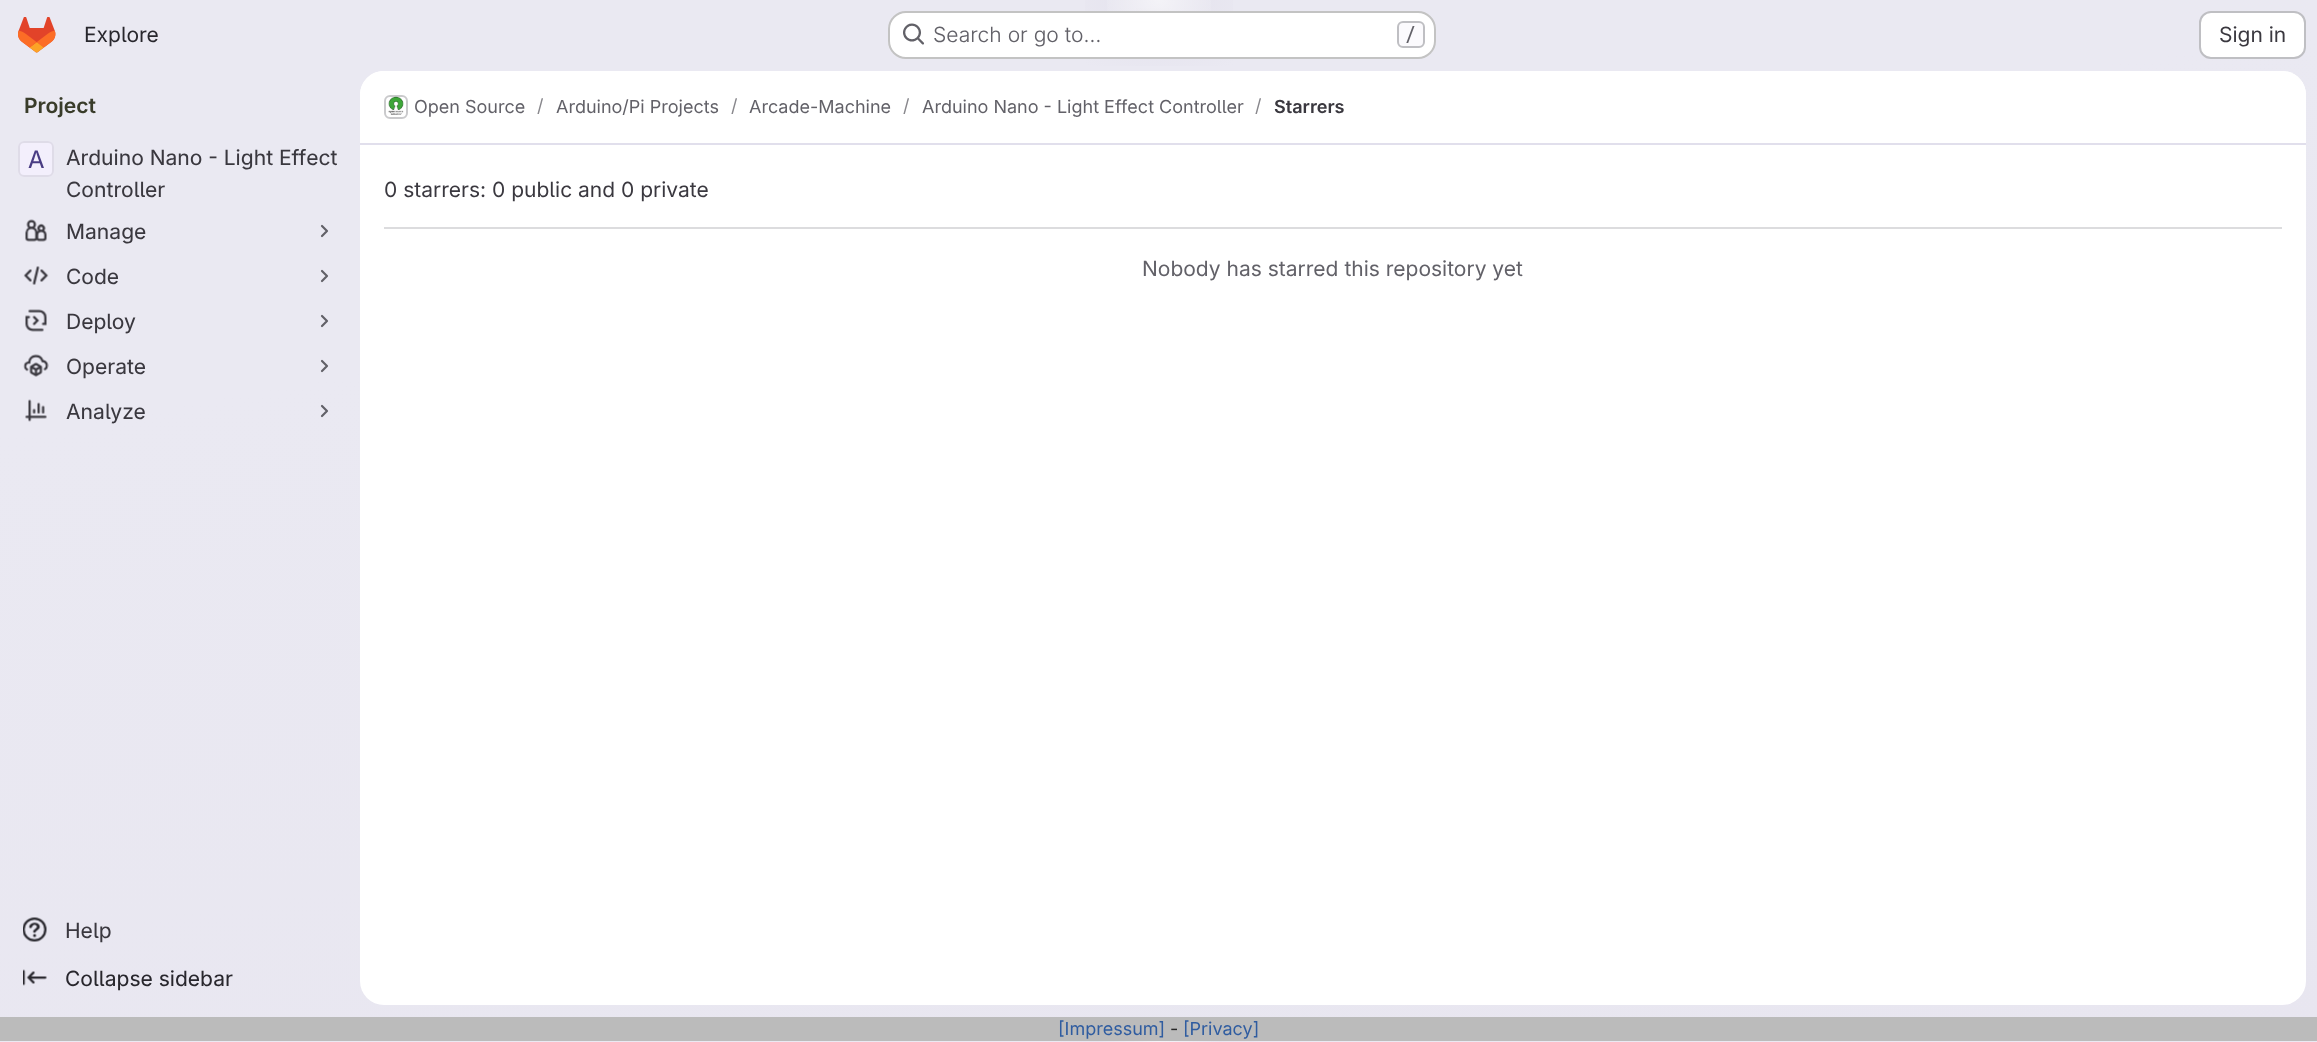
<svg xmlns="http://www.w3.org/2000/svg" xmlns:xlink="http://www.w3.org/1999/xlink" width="2317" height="1042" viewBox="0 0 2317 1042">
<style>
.cls-1{font:21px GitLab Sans;fill:#28272d}
.cls-2{font:300 21px GitLab Sans;fill:#626168}
.cls-3{font:500 18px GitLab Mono;fill:#626168}
.cls-4{font:21px GitLab Sans;fill:#3a383f}
.cls-5{font:600 21px GitLab Sans;fill:#393c2a}
.cls-6{font:24px 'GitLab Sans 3';fill:#493c83}
.cls-7{font:21px 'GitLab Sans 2';fill:#3a383f}
.cls-8{font:21px 'GitLab Sans 2';fill:#28272d}
.cls-9{font:18px GitLab Sans;fill:#626168}
.cls-10{font:18px GitLab Sans;fill:#89888d}
.cls-11{font:600 18px GitLab Sans;fill:#3a383f}
.cls-12{font:21px GitLab Sans;fill:#626168}
.cls-13{font:18px GitLab Sans;fill:#2f5ca0}
.cls-14{font:18px GitLab Sans;fill:#272727}
</style>
<defs>
<linearGradient id="g1" gradientUnits="userSpaceOnUse" x1="1283" y1="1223" x2="1035" y2="-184"><stop offset="0" stop-color="#e8e6f0"/><stop offset="0.7" stop-color="#eae9f2"/></linearGradient>
<radialGradient id="g2" gradientUnits="userSpaceOnUse" cx="0" cy="0" r="1" gradientTransform="matrix(1159 0 0 1043 1159 -1.5)"><stop offset="0" stop-color="#e4e2ed"/><stop offset="0.09" stop-color="#e4e2ed" stop-opacity="0"/></radialGradient>
<radialGradient id="g3" gradientUnits="userSpaceOnUse" cx="0" cy="0" r="1" gradientTransform="matrix(1159 0 0 1043 1159 1041)"><stop offset="0" stop-color="#e4e2ed"/><stop offset="0.09" stop-color="#eae9f2"/></radialGradient>
<radialGradient id="g4" gradientUnits="userSpaceOnUse" cx="0" cy="0" r="1" gradientTransform="matrix(1159 0 0 1043 1159 -1.5)"><stop offset="0" stop-color="#e4e2ec"/><stop offset="0.06" stop-color="#e4e2ec" stop-opacity="0"/></radialGradient>
<radialGradient id="g5" gradientUnits="userSpaceOnUse" cx="1159" cy="-1.5" r="1559"><stop offset="0" stop-color="#ffffff" stop-opacity="0.6"/><stop offset="0.04" stop-color="#ffffff" stop-opacity="0"/></radialGradient>
<radialGradient id="g6" gradientUnits="userSpaceOnUse" cx="1159" cy="1041" r="1559"><stop offset="0" stop-color="#ffffff" stop-opacity="0.6"/><stop offset="0.04" stop-color="#ffffff" stop-opacity="0"/></radialGradient>
</defs>
<rect width="100%" height="100%" fill="#ffffff"/>
<rect fill="url(#g1)" x="0" y="0" width="2317" height="1017"/>
<rect fill="url(#g2)" x="1085" y="0" width="148" height="66"/>
<rect fill="url(#g3)" x="0" y="1041" width="2317" height="1"/>
<rect fill="url(#g4)" x="1136" y="8" width="33" height="12"/>
<rect fill="url(#g5)" x="1107" y="0" width="104" height="11"/>
<rect fill="url(#g6)" x="1099" y="1041" width="120" height="1"/>
<image xlink:href="image0.png" x="18" y="17" width="38" height="36"/>
<rect fill="#ffffff" x="888" y="11" width="548" height="48" rx="18"/>
<rect fill="none" stroke="#050506" stroke-opacity="0.24" stroke-width="2" x="889" y="12" width="546" height="46" rx="17"/>
<image xlink:href="image1.png" x="903" y="23" width="21" height="22"/>
<rect fill="#fbfafd" stroke="#bfbfc3" stroke-width="2" x="1398" y="22" width="26" height="25" rx="5"/>
<rect fill="#ffffff" stroke="#bfbfc3" stroke-width="2" x="2200" y="12" width="105" height="46" rx="11"/>
<rect fill="#ffffff" x="18" y="141" width="36" height="36" rx="6"/>
<rect fill="#cbbbf2" fill-opacity="0.24" x="18" y="141" width="36" height="36" rx="6"/>
<rect fill="none" stroke="#dfdce8" stroke-width="2" x="19" y="142" width="34" height="34" rx="5"/>
<image xlink:href="image2.png" x="25" y="219" width="22" height="23"/>
<path fill="none" stroke="#626168" stroke-width="2.2" stroke-linecap="round" stroke-linejoin="round" d="M322 226L327 231L322 236"/>
<image xlink:href="image3.png" x="23" y="266" width="26" height="19"/>
<path fill="none" stroke="#626168" stroke-width="2.2" stroke-linecap="round" stroke-linejoin="round" d="M322 271L327 276L322 281"/>
<image xlink:href="image4.png" x="25" y="309" width="22" height="23"/>
<path fill="none" stroke="#626168" stroke-width="2.2" stroke-linecap="round" stroke-linejoin="round" d="M322 316L327 321L322 326"/>
<image xlink:href="image5.png" x="23" y="354" width="26" height="23"/>
<path fill="none" stroke="#626168" stroke-width="2.2" stroke-linecap="round" stroke-linejoin="round" d="M322 361L327 366L322 371"/>
<image xlink:href="image6.png" x="25" y="399" width="22" height="23"/>
<path fill="none" stroke="#626168" stroke-width="2.2" stroke-linecap="round" stroke-linejoin="round" d="M322 406L327 411L322 416"/>
<image xlink:href="image7.png" x="23" y="917" width="24" height="25"/>
<image xlink:href="image8.png" x="23" y="969" width="24" height="17"/>
<rect fill="#ffffff" x="360" y="71" width="1946" height="934" rx="24"/>
<path fill="#ffffff" d="M384 71H2282C2295.5 71 2306 81.5 2306 95V144H360V95C360 81.5 370.5 71 384 71Z"/>
<rect fill="#e1dfec" x="360" y="143" width="1946" height="2"/>
<rect fill="none" stroke="#dcdcde" stroke-width="2" x="385" y="96" width="22" height="22" rx="5"/>
<image xlink:href="image9.png" x="388" y="96" width="16" height="19"/>
<rect fill="none" stroke="#050506" stroke-opacity="0.08" stroke-width="2" x="385" y="96" width="22" height="22" rx="5"/>
<rect fill="#dcdcde" x="384" y="227" width="1898" height="2"/>
<rect fill="#bbbbbb" x="0" y="1017" width="2317" height="24"/>
<text class="cls-1" x="84" y="42">Explore</text>
<text class="cls-2" x="933" y="42">Search or go to…</text>
<text class="cls-3" x="1405" y="41">/</text>
<text class="cls-4" x="2219" y="42">Sign in</text>
<text class="cls-5" x="24" y="113">Project</text>
<text class="cls-6" x="28" y="168">A</text>
<text class="cls-7"><tspan x="66" y="165">Arduino Nano - Light Effect</tspan><tspan x="66" y="197">Controller</tspan></text>
<text class="cls-7" x="66" y="239">Manage</text>
<text class="cls-7" x="66" y="284">Code</text>
<text class="cls-7" x="66" y="329">Deploy</text>
<text class="cls-7" x="66" y="374">Operate</text>
<text class="cls-7" x="66" y="419">Analyze</text>
<text class="cls-7" x="65" y="938">Help</text>
<text class="cls-8" x="65" y="986">Collapse sidebar</text>
<text class="cls-9" x="414" y="113">Open Source</text>
<text class="cls-10" x="537" y="112">/</text>
<text class="cls-9" x="556" y="113">Arduino/Pi Projects</text>
<text class="cls-10" x="731" y="112">/</text>
<text class="cls-9" x="749" y="113">Arcade-Machine</text>
<text class="cls-10" x="903" y="112">/</text>
<text class="cls-9" x="922" y="113">Arduino Nano - Light Effect Controller</text>
<text class="cls-10" x="1255" y="112">/</text>
<text class="cls-11" x="1274" y="113">Starrers</text>
<text class="cls-4" x="384" y="197">0 starrers: 0 public and 0 private</text>
<text class="cls-12" x="1142" y="276">Nobody has starred this repository yet</text>
<text class="cls-13" x="1058" y="1035">[Impressum]</text>
<text class="cls-14" x="1170" y="1035">-</text>
<text class="cls-13" x="1183" y="1035">[Privacy]</text>
</svg>
